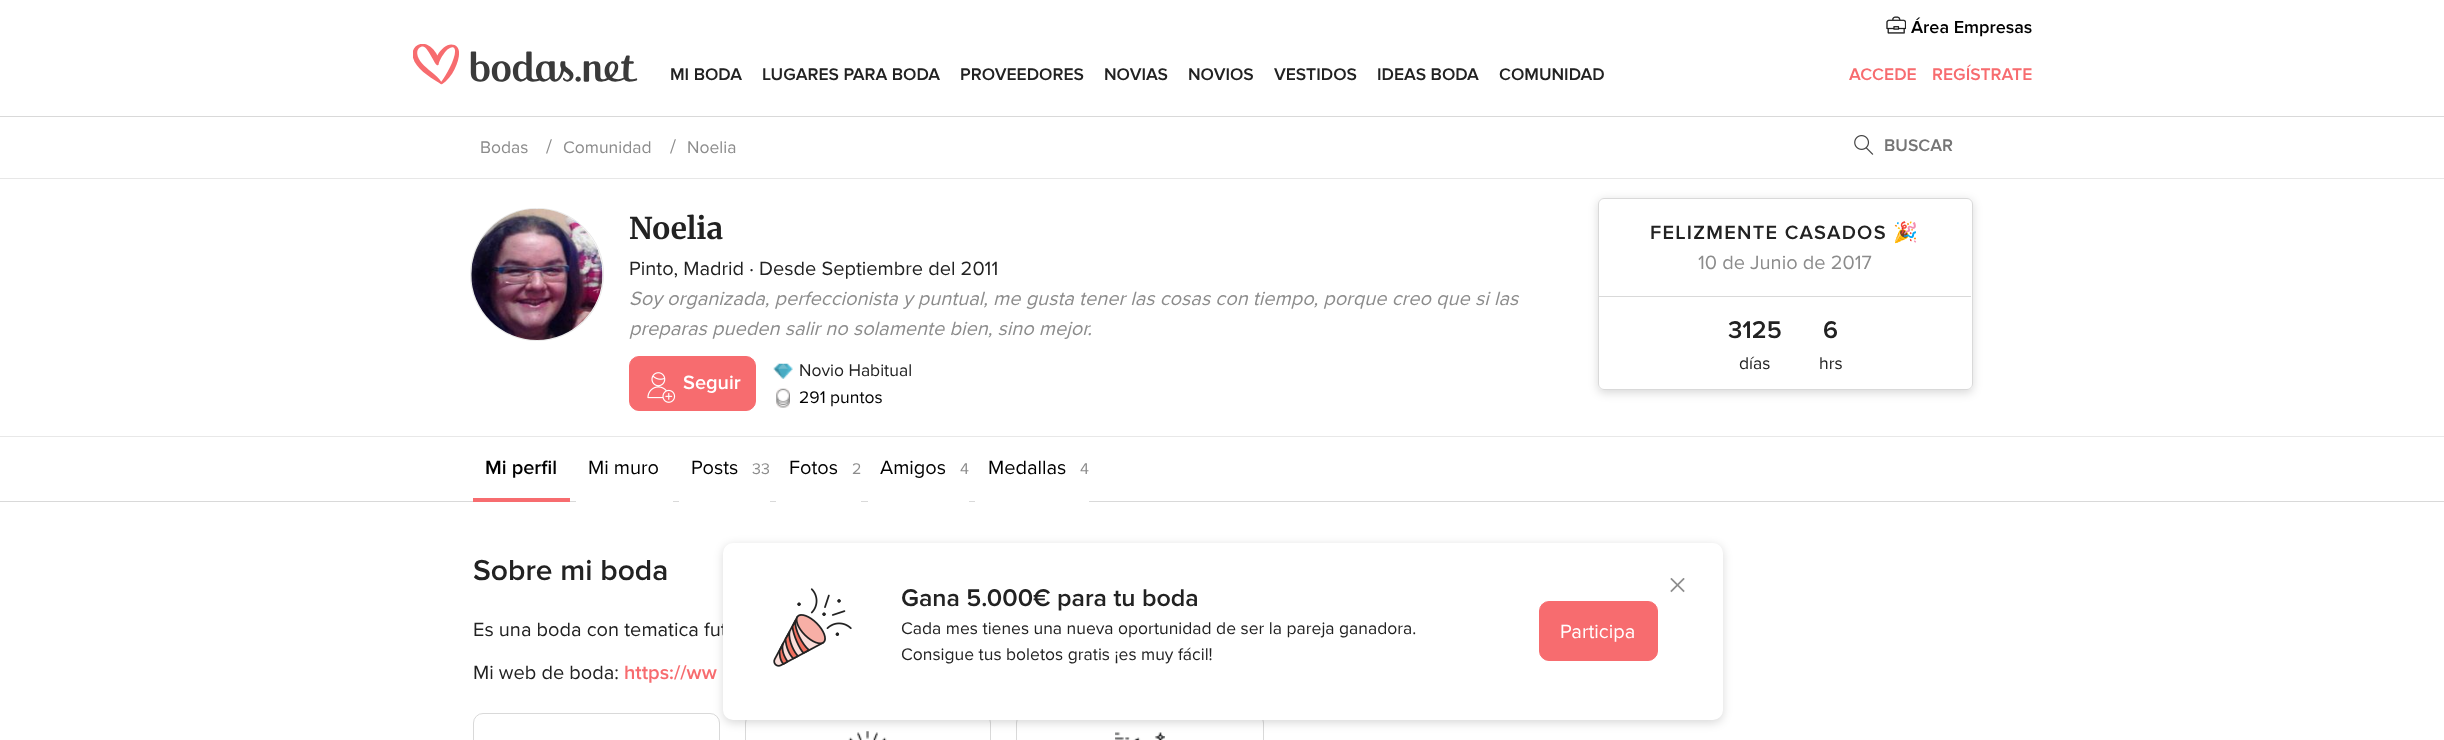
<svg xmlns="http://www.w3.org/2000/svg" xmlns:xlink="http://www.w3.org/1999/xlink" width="2444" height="740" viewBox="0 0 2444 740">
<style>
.cls-1{font:600 18px Proxima Nova;fill:#000000}
.cls-2{font:600 17.5px Proxima Nova;fill:#222222}
.cls-3{font:600 17.5px Proxima Nova;fill:#f76c6f}
.cls-4{font:17.5px Proxima Nova;fill:#8c8c8c}
.cls-5{font:20px Proxima Nova;fill:#8c8c8c}
.cls-6{font:600 17.5px Proxima Nova;fill:#757575}
.cls-7{font:bold 30px Merriweather;fill:#222222}
.cls-8{font:20px Proxima Nova;fill:#222222}
.cls-9{font:italic 20px Proxima Nova;fill:#8c8c8c}
.cls-10{font:600 20px Proxima Nova;fill:#ffffff}
.cls-11{font:17.5px Proxima Nova;fill:#222222}
.cls-12{font:17.5px Proxima Nova;fill:#000000}
.cls-13{font:600 20px Proxima Nova;letter-spacing:1.25px;fill:#222222}
.cls-14{font:bold 20px Noto Color Emoji;letter-spacing:1.25px;fill:#222222}
.cls-15{font:600 25px Proxima Nova;fill:#222222}
.cls-16{font:600 20px Proxima Nova;fill:#000000}
.cls-17{font:20px Proxima Nova;fill:#000000}
.cls-18{font:16px Proxima Nova;fill:#8c8c8c}
.cls-19{font:600 30px Proxima Nova;fill:#222222}
.cls-20{font:600 20px Proxima Nova;fill:#f76c6f}
.cls-21{font:20px Proxima Nova;fill:#ffffff}
</style>
<defs>
<clipPath id="clip1"><path d="M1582 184H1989V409H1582ZM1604 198H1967C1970.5 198 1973 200.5 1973 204V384C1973 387.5 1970.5 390 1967 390H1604C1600.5 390 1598 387.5 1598 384V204C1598 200.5 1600.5 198 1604 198Z" clip-rule="evenodd"/></clipPath>
</defs>
<rect width="100%" height="100%" fill="#ffffff"/>
<image xlink:href="image0.png" x="1886" y="16" width="20" height="18"/>
<image xlink:href="image1.png" x="413" y="44" width="225" height="41"/>
<rect fill="#d9d9d9" x="0" y="116" width="2444" height="1"/>
<rect fill="#e7e7e7" x="0" y="178" width="2444" height="1"/>
<image xlink:href="image2.png" x="1854" y="135" width="20" height="20"/>
<rect fill="none" stroke="#e8e8e8" x="470.5" y="208.5" width="133" height="132" rx="66"/>
<image xlink:href="image3.png" x="471" y="209" width="132" height="131"/>
<rect fill="#f76c6f" stroke="#f76c6f" x="629.5" y="356.5" width="126" height="54" rx="9.5"/>
<image xlink:href="image4.png" x="647" y="372" width="29" height="31"/>
<image xlink:href="image5.png" x="773" y="363" width="20" height="16"/>
<image xlink:href="image6.png" x="776" y="388" width="14" height="20"/>
<g clip-path="url(#clip1)">
<rect fill="#000000" fill-opacity="0.15" filter="blur(5px)" x="1598" y="200" width="375" height="193" rx="6"/>
</g>
<rect fill="none" stroke="#d9d9d9" x="1598.5" y="198.5" width="374" height="191" rx="5.5"/>
<rect fill="#d9d9d9" x="1599" y="296" width="372" height="1"/>
<rect fill="#e8e8e8" x="0" y="436" width="2444" height="1"/>
<rect fill="#d9d9d9" x="0" y="501" width="2444" height="1"/>
<rect fill="#f76c6f" x="473" y="498" width="97" height="4"/>
<rect fill="#ffffff" x="576" y="501" width="97" height="1"/>
<rect fill="#ffffff" x="679" y="501" width="91" height="1"/>
<rect fill="#ffffff" x="776" y="501" width="85" height="1"/>
<rect fill="#ffffff" x="868" y="501" width="101" height="1"/>
<rect fill="#ffffff" x="975" y="501" width="114" height="1"/>
<rect fill="none" stroke="#d9d9d9" x="473.5" y="713.5" width="246" height="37" rx="9.5"/>
<rect fill="none" stroke="#d9d9d9" x="745.5" y="713.5" width="245" height="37" rx="9.5"/>
<image xlink:href="image7.png" x="848" y="731" width="39" height="9"/>
<rect fill="none" stroke="#d9d9d9" x="1016.5" y="713.5" width="247" height="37" rx="9.5"/>
<image xlink:href="image8.png" x="1115" y="732" width="50" height="8"/>
<rect fill="#000000" fill-opacity="0.15" filter="blur(5px)" x="723" y="545" width="1000" height="178" rx="10"/>
<text class="cls-1" x="1911" y="33">Área Empresas</text>
<text class="cls-2" x="670" y="80">MI BODA</text>
<text class="cls-2" x="762" y="80">LUGARES PARA BODA</text>
<text class="cls-2" x="960" y="80">PROVEEDORES</text>
<text class="cls-2" x="1104" y="80">NOVIAS</text>
<text class="cls-2" x="1188" y="80">NOVIOS</text>
<text class="cls-2" x="1274" y="80">VESTIDOS</text>
<text class="cls-2" x="1377" y="80">IDEAS BODA</text>
<text class="cls-2" x="1499" y="80">COMUNIDAD</text>
<text class="cls-3" x="1849" y="80">ACCEDE</text>
<text class="cls-3" x="1932" y="80">REGÍSTRATE</text>
<text class="cls-4" x="480" y="153">Bodas</text>
<text class="cls-5" x="546" y="153">/</text>
<text class="cls-4" x="563" y="153">Comunidad</text>
<text class="cls-5" x="670" y="153">/</text>
<text class="cls-4" x="687" y="153">Noelia</text>
<text class="cls-6" x="1884" y="151">BUSCAR</text>
<text class="cls-7" x="629" y="239">Noelia</text>
<text class="cls-8" x="629" y="275">Pinto, Madrid · Desde Septiembre del 2011</text>
<text class="cls-9"><tspan x="629" y="305">Soy organizada, perfeccionista y puntual, me gusta tener las cosas con tiempo, porque creo que si las</tspan><tspan x="629" y="335">preparas pueden salir no solamente bien, sino mejor.</tspan></text>
<text class="cls-10" x="683" y="389">Seguir</text>
<text class="cls-11" x="799" y="376">Novio Habitual</text>
<text class="cls-12" x="799" y="403">291 puntos</text>
<text class="cls-13" x="1650" y="239">FELIZMENTE CASADOS</text>
<text class="cls-14" x="1893" y="239">🎉</text>
<text class="cls-5" x="1698" y="269">10 de Junio de 2017</text>
<text class="cls-15" x="1728" y="338">3125</text>
<text class="cls-11" x="1739" y="369">días</text>
<text class="cls-15" x="1823" y="338">6</text>
<text class="cls-11" x="1819" y="369">hrs</text>
<text class="cls-16" x="485" y="474">Mi perfil</text>
<text class="cls-17" x="588" y="474">Mi muro</text>
<text class="cls-17" x="691" y="474">Posts</text>
<text class="cls-18" x="752" y="474">33</text>
<text class="cls-17" x="789" y="474">Fotos</text>
<text class="cls-18" x="852" y="474">2</text>
<text class="cls-17" x="880" y="474">Amigos</text>
<text class="cls-18" x="960" y="474">4</text>
<text class="cls-17" x="988" y="474">Medallas</text>
<text class="cls-18" x="1080" y="474">4</text>
<text class="cls-19" x="473" y="580">Sobre mi boda</text>
<text class="cls-8" x="473" y="636">Es una boda con tematica fut</text>
<text class="cls-8" x="473" y="679">Mi web de boda:</text>
<text class="cls-20" x="624" y="679">https://ww</text>
<rect fill="#ffffff" x="723" y="543" width="1000" height="177" rx="10"/>
<image xlink:href="image9.png" x="1670" y="578" width="15" height="15"/>
<image xlink:href="image10.png" x="773" y="588" width="79" height="79"/>
<text class="cls-15" x="901" y="606">Gana 5.000€ para tu boda</text>
<text class="cls-11"><tspan x="901" y="634">Cada mes tienes una nueva oportunidad de ser la pareja ganadora.</tspan><tspan x="901" y="660">Consigue tus boletos gratis ¡es muy fácil!</tspan></text>
<rect fill="#f76c6f" stroke="#f76c6f" x="1539.5" y="601.5" width="118" height="59" rx="9.5"/>
<text class="cls-21" x="1560" y="638">Participa</text>
</svg>
